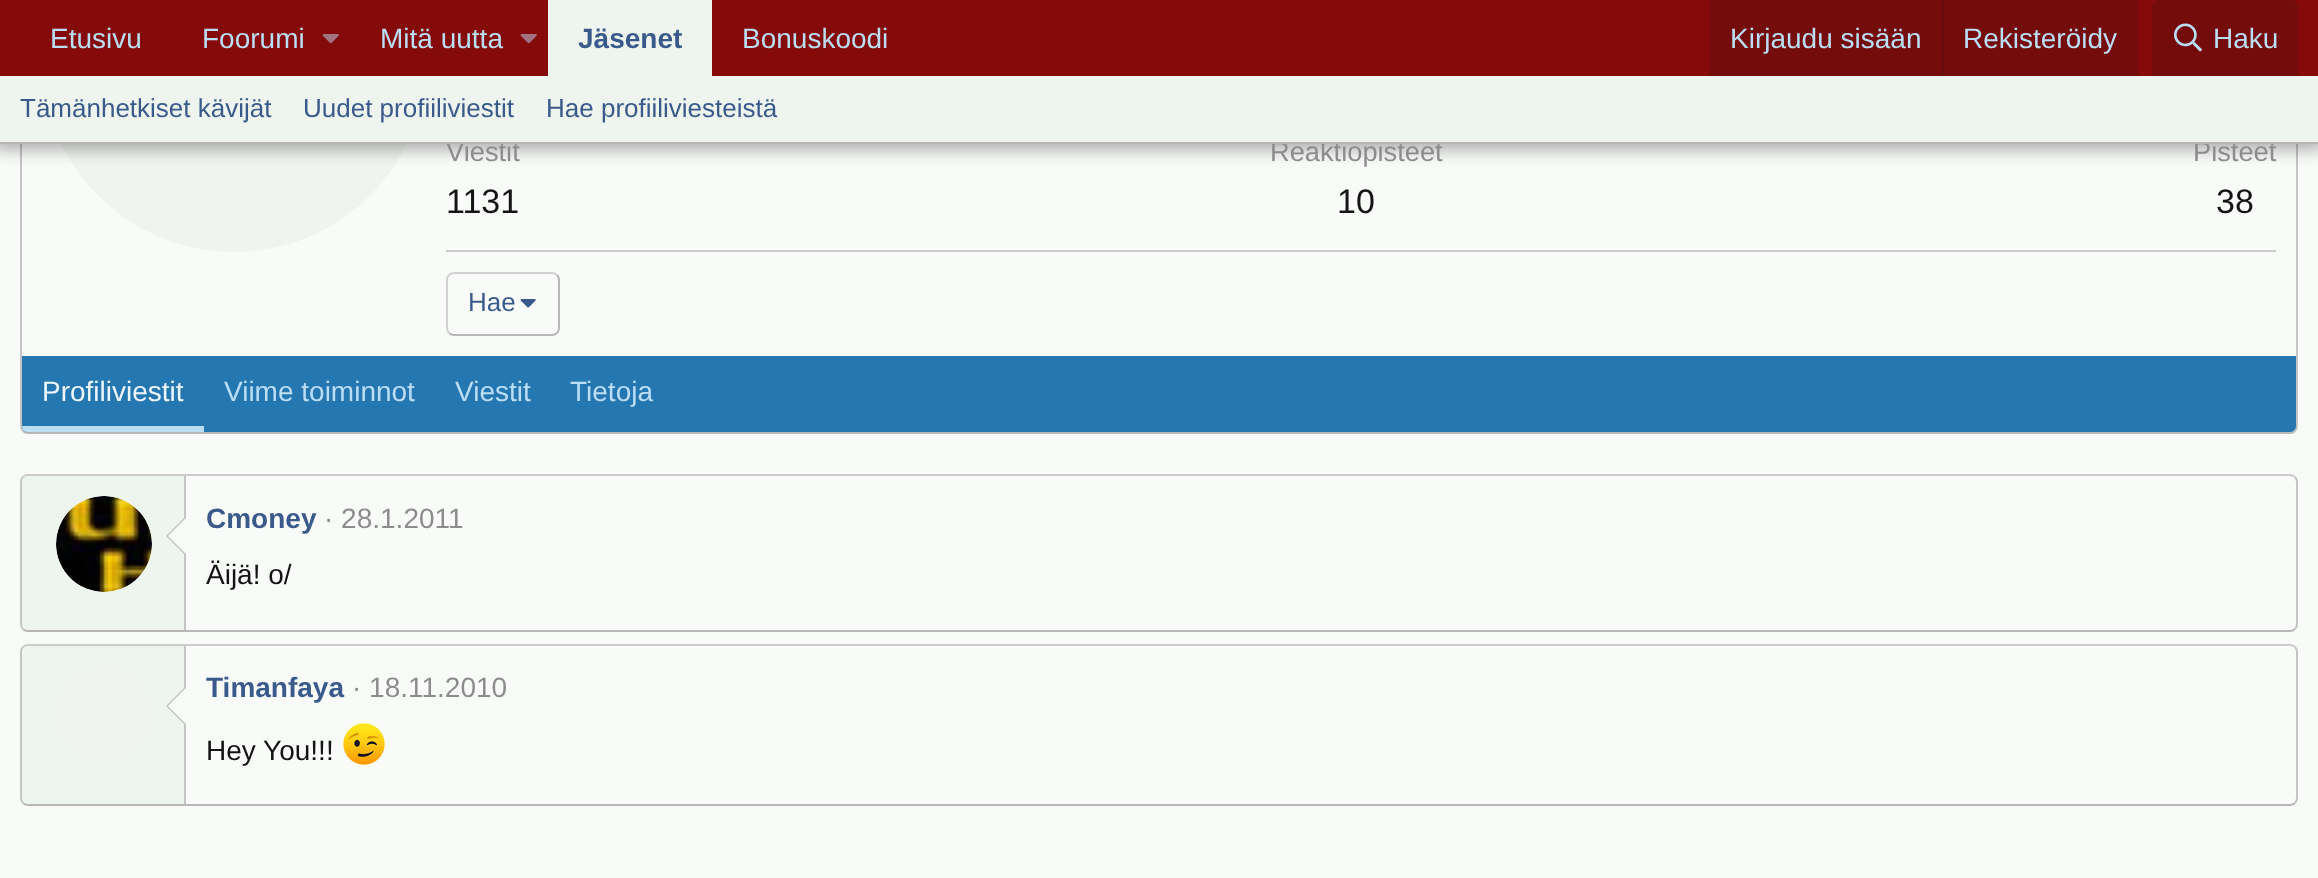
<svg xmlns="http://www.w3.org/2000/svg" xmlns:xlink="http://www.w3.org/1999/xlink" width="2318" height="878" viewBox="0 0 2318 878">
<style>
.cls-1{font:28px Liberation Sans;fill:#bcdef5}
.cls-2{font:bold 28px Liberation Sans;fill:#395a8b}
.cls-3{font:27.25px Liberation Sans;fill:#8c8c8c}
.cls-4{font:34px Liberation Sans;fill:#141414}
.cls-5{font:26px Liberation Sans;fill:#395a8b}
.cls-6{font:28px Liberation Sans;fill:#edf6fd}
.cls-7{font:28px Liberation Sans;fill:#8c8c8c}
.cls-8{font:28px Liberation Sans;fill:#141414}
</style>
<rect width="100%" height="100%" fill="#f9fbf9"/>
<path fill="none" stroke="#c4c4c4" stroke-width="2" d="M2295-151C2296.5-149.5 2297-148 2297-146V426C2297 428 2296.5 429.5 2295 431"/>
<path fill="none" stroke="#b7b7b7" stroke-width="2" d="M2295 431C2293.5 432.5 2292 433 2290 433H28C26 433 24.5 432.5 23 431"/>
<path fill="none" stroke="#c4c4c4" stroke-width="2" d="M23 431C21.5 429.5 21 428 21 426V-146C21-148 21.5-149.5 23-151"/>
<image xlink:href="image2.png" x="61" y="144" width="346" height="108"/>
<rect fill="#000000" fill-opacity="0.3" filter="blur(8px)" x="-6" y="-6" width="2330" height="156"/>
<rect fill="#850b0b" x="0" y="0" width="2318" height="76"/>
<image xlink:href="image0.png" x="322" y="34" width="17" height="10"/>
<image xlink:href="image0.png" x="520" y="34" width="17" height="10"/>
<rect fill="#eef4ee" x="548" y="0" width="164" height="76"/>
<rect fill="#740c0c" x="1710" y="0" width="428" height="76"/>
<rect fill="#660d0d" x="1942" y="0" width="2" height="76"/>
<path fill="#740c0c" d="M2160 0H2290C2294.5 0 2298 3.5 2298 8V76H2152V8C2152 3.5 2155.5 0 2160 0Z"/>
<image xlink:href="image1.png" x="2174" y="23" width="28" height="29"/>
<rect fill="#cccccc" x="446" y="250" width="1830" height="2"/>
<path fill="none" stroke="#b7b7b7" stroke-width="2" d="M557 275C558.5 276.5 559 278 559 280V328C559 330 558.5 331.5 557 333C555.5 334.5 554 335 552 335H454C452 335 450.5 334.5 449 333"/>
<path fill="none" stroke="#d1d1d1" stroke-width="2" d="M449 333C447.5 331.5 447 330 447 328V280C447 278 447.5 276.5 449 275C450.5 273.5 452 273 454 273H552C554 273 555.5 273.5 557 275"/>
<image xlink:href="image3.png" x="520" y="299" width="16" height="9"/>
<path fill="#2577b1" d="M22 356H2296V426C2296 429.5 2293.5 432 2290 432H28C24.5 432 22 429.5 22 426Z"/>
<path fill="#bcdef5" d="M22 426H204V432H28C24.5 432 22 429.5 22 426Z"/>
<path fill="none" stroke="#cccccc" stroke-width="2" d="M23 477C24.5 475.5 26 475 28 475H2290C2292 475 2293.5 475.5 2295 477"/>
<path fill="none" stroke="#c4c4c4" stroke-width="2" d="M2295 477C2296.5 478.5 2297 480 2297 482V624C2297 626 2296.5 627.5 2295 629"/>
<path fill="none" stroke="#b7b7b7" stroke-width="2" d="M2295 629C2293.5 630.5 2292 631 2290 631H28C26 631 24.5 630.5 23 629"/>
<path fill="none" stroke="#c4c4c4" stroke-width="2" d="M23 629C21.5 627.5 21 626 21 624V482C21 480 21.5 478.5 23 477"/>
<path fill="#eef4ee" d="M28 476H186V630H28C24.5 630 22 627.5 22 624V482C22 478.5 24.5 476 28 476Z"/>
<rect fill="#c4c4c4" x="184" y="476" width="2" height="154"/>
<circle fill="#f9fbf9" cx="104" cy="544" r="48"/>
<image xlink:href="image4.png" x="56" y="496" width="96" height="96"/>
<path fill="#c4c4c4" d="M186 516V556L166 536Z"/>
<path fill="#f9fbf9" d="M186 518V554L168 536Z"/>
<path fill="none" stroke="#cccccc" stroke-width="2" d="M23 647C24.5 645.5 26 645 28 645H2290C2292 645 2293.5 645.5 2295 647"/>
<path fill="none" stroke="#c4c4c4" stroke-width="2" d="M2295 647C2296.5 648.5 2297 650 2297 652V798C2297 800 2296.5 801.5 2295 803"/>
<path fill="none" stroke="#b7b7b7" stroke-width="2" d="M2295 803C2293.5 804.5 2292 805 2290 805H28C26 805 24.5 804.5 23 803"/>
<path fill="none" stroke="#c4c4c4" stroke-width="2" d="M23 803C21.5 801.5 21 800 21 798V652C21 650 21.5 648.5 23 647"/>
<path fill="#eef4ee" d="M28 646H186V804H28C24.5 804 22 801.5 22 798V652C22 648.5 24.5 646 28 646Z"/>
<rect fill="#c4c4c4" x="184" y="646" width="2" height="158"/>
<circle fill="#f9fbf9" cx="104" cy="714" r="48"/>
<image xlink:href="image5.png" x="56" y="666" width="96" height="96"/>
<path fill="#c4c4c4" d="M186 686V726L166 706Z"/>
<path fill="#f9fbf9" d="M186 688V724L168 706Z"/>
<image xlink:href="image6.png" x="343" y="723" width="42" height="42"/>
<text class="cls-1" x="50" y="48">Etusivu</text>
<text class="cls-1" x="202" y="48">Foorumi</text>
<text class="cls-1" x="380" y="48">Mitä uutta</text>
<text class="cls-2" x="578" y="48">Jäsenet</text>
<text class="cls-1" x="742" y="48">Bonuskoodi</text>
<text class="cls-1" x="1730" y="48">Kirjaudu sisään</text>
<text class="cls-1" x="1963" y="48">Rekisteröidy</text>
<text class="cls-1" x="2213" y="48">Haku</text>
<text class="cls-3" x="446" y="161">Viestit</text>
<text class="cls-4" x="446" y="213">1131</text>
<text class="cls-3" x="1270" y="161">Reaktiopisteet</text>
<text class="cls-4" x="1337" y="213">10</text>
<text class="cls-3" x="2193" y="161">Pisteet</text>
<rect fill="#eef4ee" x="0" y="76" width="2318" height="66"/>
<text class="cls-5" x="546" y="117">Hae profiiliviesteistä</text>
<text class="cls-5" x="303" y="117">Uudet profiiliviestit</text>
<text class="cls-5" x="20" y="117">Tämänhetkiset kävijät</text>
<rect fill="#b7b7b7" x="0" y="142" width="2318" height="2"/>
<text class="cls-4" x="2216" y="213">38</text>
<text class="cls-5" x="468" y="311">Hae</text>
<text class="cls-6" x="42" y="401">Profiliviestit</text>
<text class="cls-1" x="224" y="401">Viime toiminnot</text>
<text class="cls-1" x="455" y="401">Viestit</text>
<text class="cls-1" x="570" y="401">Tietoja</text>
<text class="cls-2" x="206" y="528">Cmoney</text>
<text class="cls-7" x="324" y="528">· 28.1.2011</text>
<text class="cls-8" x="206" y="584">Äijä! o/</text>
<text class="cls-2" x="206" y="697">Timanfaya</text>
<text class="cls-7" x="352" y="697">· 18.11.2010</text>
<text class="cls-8" x="206" y="760">Hey You!!!</text>
</svg>
